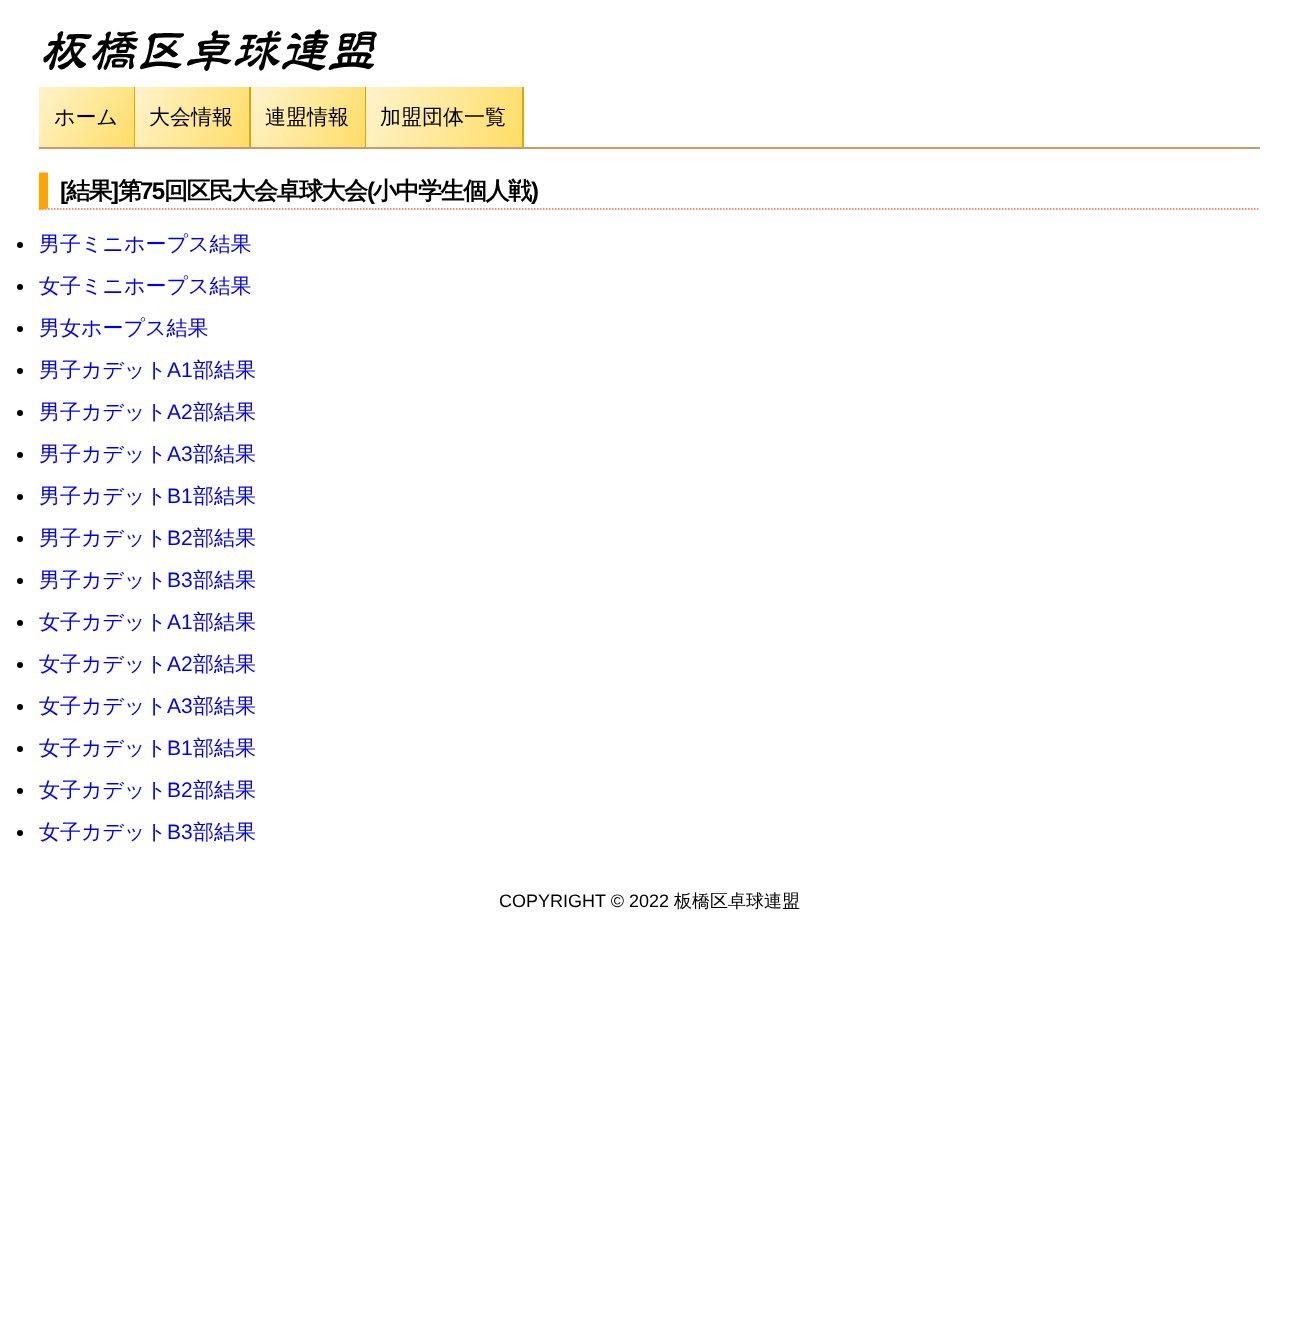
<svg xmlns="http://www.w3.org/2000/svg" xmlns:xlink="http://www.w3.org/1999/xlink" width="1299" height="1329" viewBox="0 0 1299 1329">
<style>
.cls-1{font:italic 48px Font;fill:#000000}
.cls-2{font:500 21px WenQuanYi Zen Hei;fill:#000000}
.cls-3{font:bold 24px Liberation Sans;letter-spacing:-1.5px;fill:#000000}
.cls-4{font:bold 24px WenQuanYi Zen Hei;letter-spacing:-1.5px;fill:#000000}
.cls-5{font:500 21px WenQuanYi Zen Hei;fill:#0000ee}
.cls-6{font:21px Liberation Sans;fill:#0000ee}
.cls-7{font:18px Liberation Sans;fill:#000000}
.cls-8{font:500 18px WenQuanYi Zen Hei;fill:#000000}
</style>
<defs>
<linearGradient id="g1" gradientUnits="userSpaceOnUse" x1="39" y1="87" x2="134" y2="147"><stop offset="0" stop-color="#fff3cc"/><stop offset="1" stop-color="#ffdd66"/></linearGradient>
<linearGradient id="g2" gradientUnits="userSpaceOnUse" x1="135" y1="87" x2="249" y2="147"><stop offset="0" stop-color="#fff3cc"/><stop offset="1" stop-color="#ffdd66"/></linearGradient>
<linearGradient id="g3" gradientUnits="userSpaceOnUse" x1="251" y1="87" x2="365" y2="147"><stop offset="0" stop-color="#fff3cc"/><stop offset="1" stop-color="#ffdd66"/></linearGradient>
<linearGradient id="g4" gradientUnits="userSpaceOnUse" x1="366" y1="87" x2="522" y2="147"><stop offset="0" stop-color="#fff3cc"/><stop offset="1" stop-color="#ffdd66"/></linearGradient>
</defs>
<rect width="100%" height="100%" fill="#ffffff"/>
<rect fill="#cc9966" x="39" y="147" width="1221" height="2"/>
<rect fill="url(#g1)" x="39" y="87" width="95" height="60"/>
<rect fill="#d8a900" x="134" y="87" width="1" height="60"/>
<rect fill="url(#g2)" x="135" y="87" width="114" height="60"/>
<rect fill="#d8a900" x="249" y="87" width="2" height="60"/>
<rect fill="url(#g3)" x="251" y="87" width="114" height="60"/>
<rect fill="#d8a900" x="365" y="87" width="1" height="60"/>
<rect fill="url(#g4)" x="366" y="87" width="156" height="60"/>
<rect fill="#d8a900" x="522" y="87" width="2" height="60"/>
<path fill="none" stroke="#eb6940" stroke-width="1.5" stroke-dasharray="1.5 1.5" d="M39 209H1260"/>
<path fill="#ffa500" d="M39 210V172.5H48V208.5Z"/>
<circle fill="#000000" cx="20" cy="245" r="3"/>
<circle fill="#000000" cx="20" cy="287" r="3"/>
<circle fill="#000000" cx="20" cy="329" r="3"/>
<circle fill="#000000" cx="20" cy="371" r="3"/>
<circle fill="#000000" cx="20" cy="413" r="3"/>
<circle fill="#000000" cx="20" cy="455" r="3"/>
<circle fill="#000000" cx="20" cy="497" r="3"/>
<circle fill="#000000" cx="20" cy="539" r="3"/>
<circle fill="#000000" cx="20" cy="581" r="3"/>
<circle fill="#000000" cx="20" cy="623" r="3"/>
<circle fill="#000000" cx="20" cy="665" r="3"/>
<circle fill="#000000" cx="20" cy="707" r="3"/>
<circle fill="#000000" cx="20" cy="749" r="3"/>
<circle fill="#000000" cx="20" cy="791" r="3"/>
<circle fill="#000000" cx="20" cy="833" r="3"/>
<text class="cls-1" x="39" y="69">板橋区卓球連盟</text>
<text class="cls-2" x="54" y="124">ホーム</text>
<text class="cls-2" x="149" y="124">大会情報</text>
<text class="cls-2" x="265" y="124">連盟情報</text>
<text class="cls-2" x="380" y="124">加盟団体一覧</text>
<text class="cls-3" x="60" y="199">[</text>
<text class="cls-4" x="66" y="199">結果</text>
<text class="cls-3" x="111" y="199">]</text>
<text class="cls-4" x="118" y="199">第</text>
<text class="cls-3" x="140" y="199">75</text>
<text class="cls-4" x="164" y="199">回区民大会卓球大会</text>
<text class="cls-3" x="367" y="199">(</text>
<text class="cls-4" x="373" y="199">小中学生個人戦</text>
<text class="cls-3" x="531" y="199">)</text>
<text class="cls-5" x="39" y="251">男子ミニホープス結果</text>
<text class="cls-5" x="39" y="293">女子ミニホープス結果</text>
<text class="cls-5" x="39" y="335">男女ホープス結果</text>
<text class="cls-5" x="39" y="377">男子カデット</text>
<text class="cls-6" x="167" y="377">A1</text>
<text class="cls-5" x="193" y="377">部結果</text>
<text class="cls-5" x="39" y="419">男子カデット</text>
<text class="cls-6" x="167" y="419">A2</text>
<text class="cls-5" x="193" y="419">部結果</text>
<text class="cls-5" x="39" y="461">男子カデット</text>
<text class="cls-6" x="167" y="461">A3</text>
<text class="cls-5" x="193" y="461">部結果</text>
<text class="cls-5" x="39" y="503">男子カデット</text>
<text class="cls-6" x="167" y="503">B1</text>
<text class="cls-5" x="193" y="503">部結果</text>
<text class="cls-5" x="39" y="545">男子カデット</text>
<text class="cls-6" x="167" y="545">B2</text>
<text class="cls-5" x="193" y="545">部結果</text>
<text class="cls-5" x="39" y="587">男子カデット</text>
<text class="cls-6" x="167" y="587">B3</text>
<text class="cls-5" x="193" y="587">部結果</text>
<text class="cls-5" x="39" y="629">女子カデット</text>
<text class="cls-6" x="167" y="629">A1</text>
<text class="cls-5" x="193" y="629">部結果</text>
<text class="cls-5" x="39" y="671">女子カデット</text>
<text class="cls-6" x="167" y="671">A2</text>
<text class="cls-5" x="193" y="671">部結果</text>
<text class="cls-5" x="39" y="713">女子カデット</text>
<text class="cls-6" x="167" y="713">A3</text>
<text class="cls-5" x="193" y="713">部結果</text>
<text class="cls-5" x="39" y="755">女子カデット</text>
<text class="cls-6" x="167" y="755">B1</text>
<text class="cls-5" x="193" y="755">部結果</text>
<text class="cls-5" x="39" y="797">女子カデット</text>
<text class="cls-6" x="167" y="797">B2</text>
<text class="cls-5" x="193" y="797">部結果</text>
<text class="cls-5" x="39" y="839">女子カデット</text>
<text class="cls-6" x="167" y="839">B3</text>
<text class="cls-5" x="193" y="839">部結果</text>
<text class="cls-7" x="499" y="907">COPYRIGHT © 2022</text>
<text class="cls-8" x="674" y="907">板橋区卓球連盟</text>
</svg>
